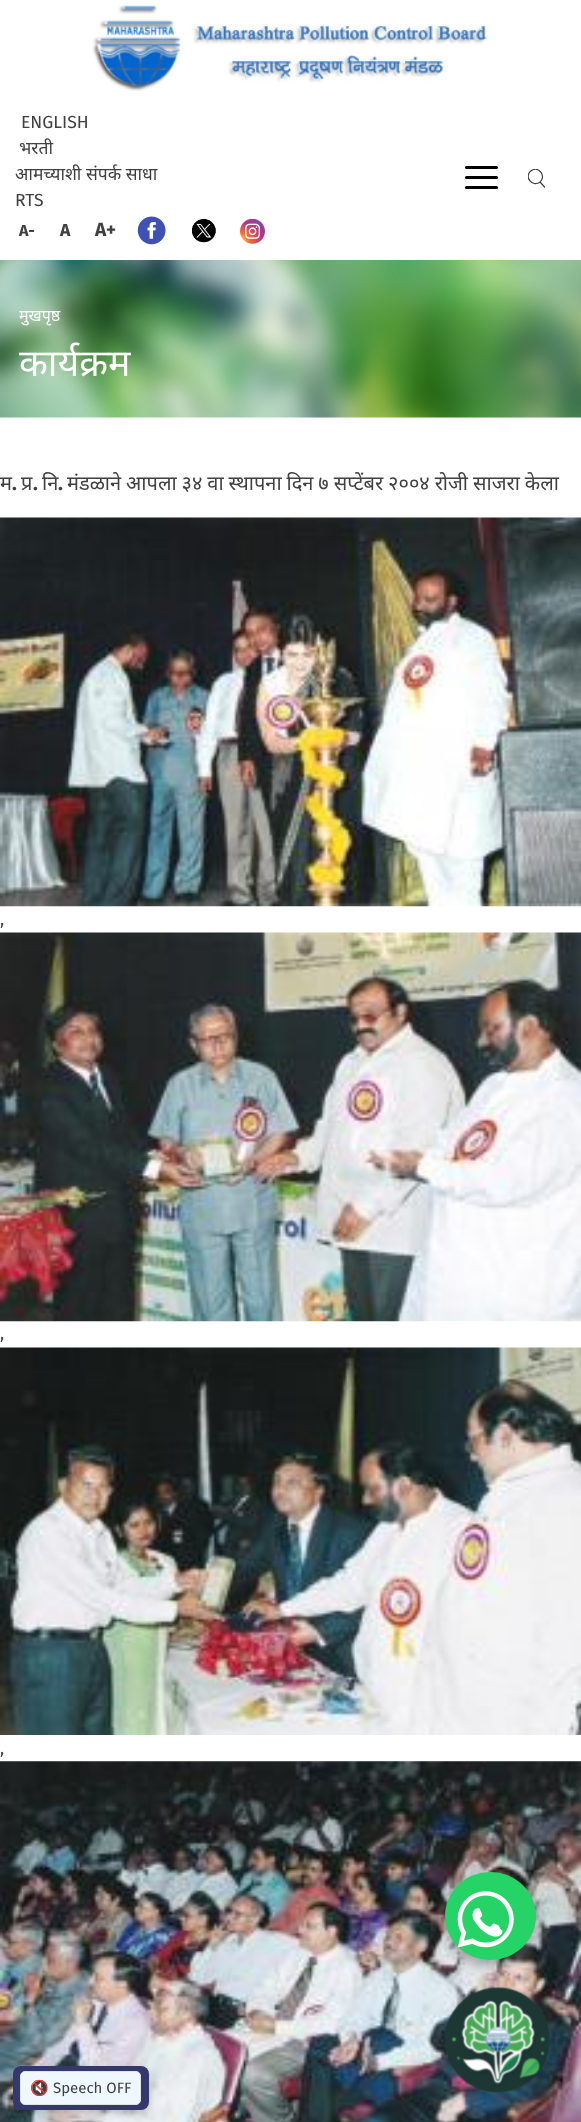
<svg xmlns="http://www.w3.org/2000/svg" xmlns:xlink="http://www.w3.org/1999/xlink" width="581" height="2122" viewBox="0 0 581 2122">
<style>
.cls-1{font:17.5px Fira Sans;fill:#404040}
.cls-2{font:17.5px Noto Sans;fill:#404040}
.cls-3{font:bold 16px Fira Sans;fill:#404040}
.cls-4{font:bold 17.5px Fira Sans;fill:#404040}
.cls-5{font:bold 19px Fira Sans;fill:#404040}
.cls-6{font:16px Noto Sans;fill:#ffffff}
.cls-7{font:37.5px Noto Sans;fill:#ffffff}
.cls-8{font:20px Noto Sans;fill:#404040}
.cls-9{font:bold 20px Fira Sans;fill:#404040}
.cls-10{font:15px Noto Color Emoji;fill:#404040}
.cls-11{font:15px Fira Sans;fill:#404040}
</style>
<defs>
<clipPath id="clip1"><rect x="528" y="169" width="17" height="19"/></clipPath>
</defs>
<rect width="100%" height="100%" fill="#ffffff"/>
<image xlink:href="image0.png" x="92" y="5" width="395" height="86"/>
<image xlink:href="image1.png" x="137" y="216" width="29" height="29"/>
<image xlink:href="image2.png" x="192" y="218" width="24" height="25"/>
<image xlink:href="image3.png" x="240" y="219" width="25" height="25"/>
<rect fill="#000000" x="465" y="166" width="33" height="3" rx="1.5"/>
<rect fill="#000000" x="465" y="176" width="33" height="3" rx="1.5"/>
<rect fill="#000000" x="465" y="186" width="33" height="3" rx="1.5"/>
<g clip-path="url(#clip1)">
<path fill="none" stroke="#404040" stroke-width="1.2" d="M540 182C532.5 188 523 176 531.5 170.5C539 165.5 546.5 176.5 540 182L545 187.5Z"/>
</g>
<image xlink:href="image4.png" x="0" y="260" width="581" height="158"/>
<image xlink:href="image5.png" x="0" y="517" width="581" height="390"/>
<image xlink:href="image6.png" x="0" y="932" width="581" height="390"/>
<image xlink:href="image7.png" x="0" y="1347" width="581" height="388"/>
<image xlink:href="image8.png" x="0" y="1761" width="581" height="361"/>
<rect fill="#000000" fill-opacity="0.3" filter="blur(6px)" x="445" y="1878" width="91" height="87" rx="43.5"/>
<ellipse fill="#25d366" cx="490.5" cy="1916" rx="45.5" ry="44"/>
<image xlink:href="image9.png" x="457" y="1891" width="57" height="57"/>
<rect fill="#000000" fill-opacity="0.15" filter="blur(4px)" x="13" y="2069" width="136" height="44" rx="8"/>
<rect fill="#34386a" x="13" y="2066" width="136" height="44" rx="8"/>
<rect fill="#f0f8ff" stroke="#dee2e6" x="20.5" y="2071.5" width="120" height="33" rx="4.5"/>
<image xlink:href="image10.png" x="445" y="1987" width="105" height="106"/>
<text class="cls-1" x="21" y="128">ENGLISH</text>
<text class="cls-2" x="19" y="154">भरती</text>
<text class="cls-2" x="15" y="180">आमच्याशी संपर्क साधा</text>
<text class="cls-1" x="15" y="206">RTS</text>
<text class="cls-3" x="19" y="236">A-</text>
<text class="cls-4" x="60" y="236">A</text>
<text class="cls-5" x="95" y="236">A+</text>
<text class="cls-6" x="19" y="321">मुखपृष्ठ</text>
<text class="cls-7" x="19" y="376">कार्यक्रम</text>
<text class="cls-8" x="0" y="490">म</text>
<text class="cls-9" x="12" y="490">.</text>
<text class="cls-8" x="21" y="490">प्र</text>
<text class="cls-9" x="33" y="490">.</text>
<text class="cls-8" x="42" y="490">नि</text>
<text class="cls-9" x="58" y="490">.</text>
<text class="cls-8" x="67" y="490" word-spacing="-0.25">मंडळाने आपला ३४ वा स्थापना दिन ७ सप्टेंबर २००४ रोजी साजरा केला</text>
<text class="cls-1" x="0" y="925">,</text>
<text class="cls-1" x="0" y="1339">,</text>
<text class="cls-1" x="0" y="1754">,</text>
<text class="cls-10" x="30" y="2093">🔇</text>
<text class="cls-11" x="53" y="2093">Speech OFF</text>
</svg>
